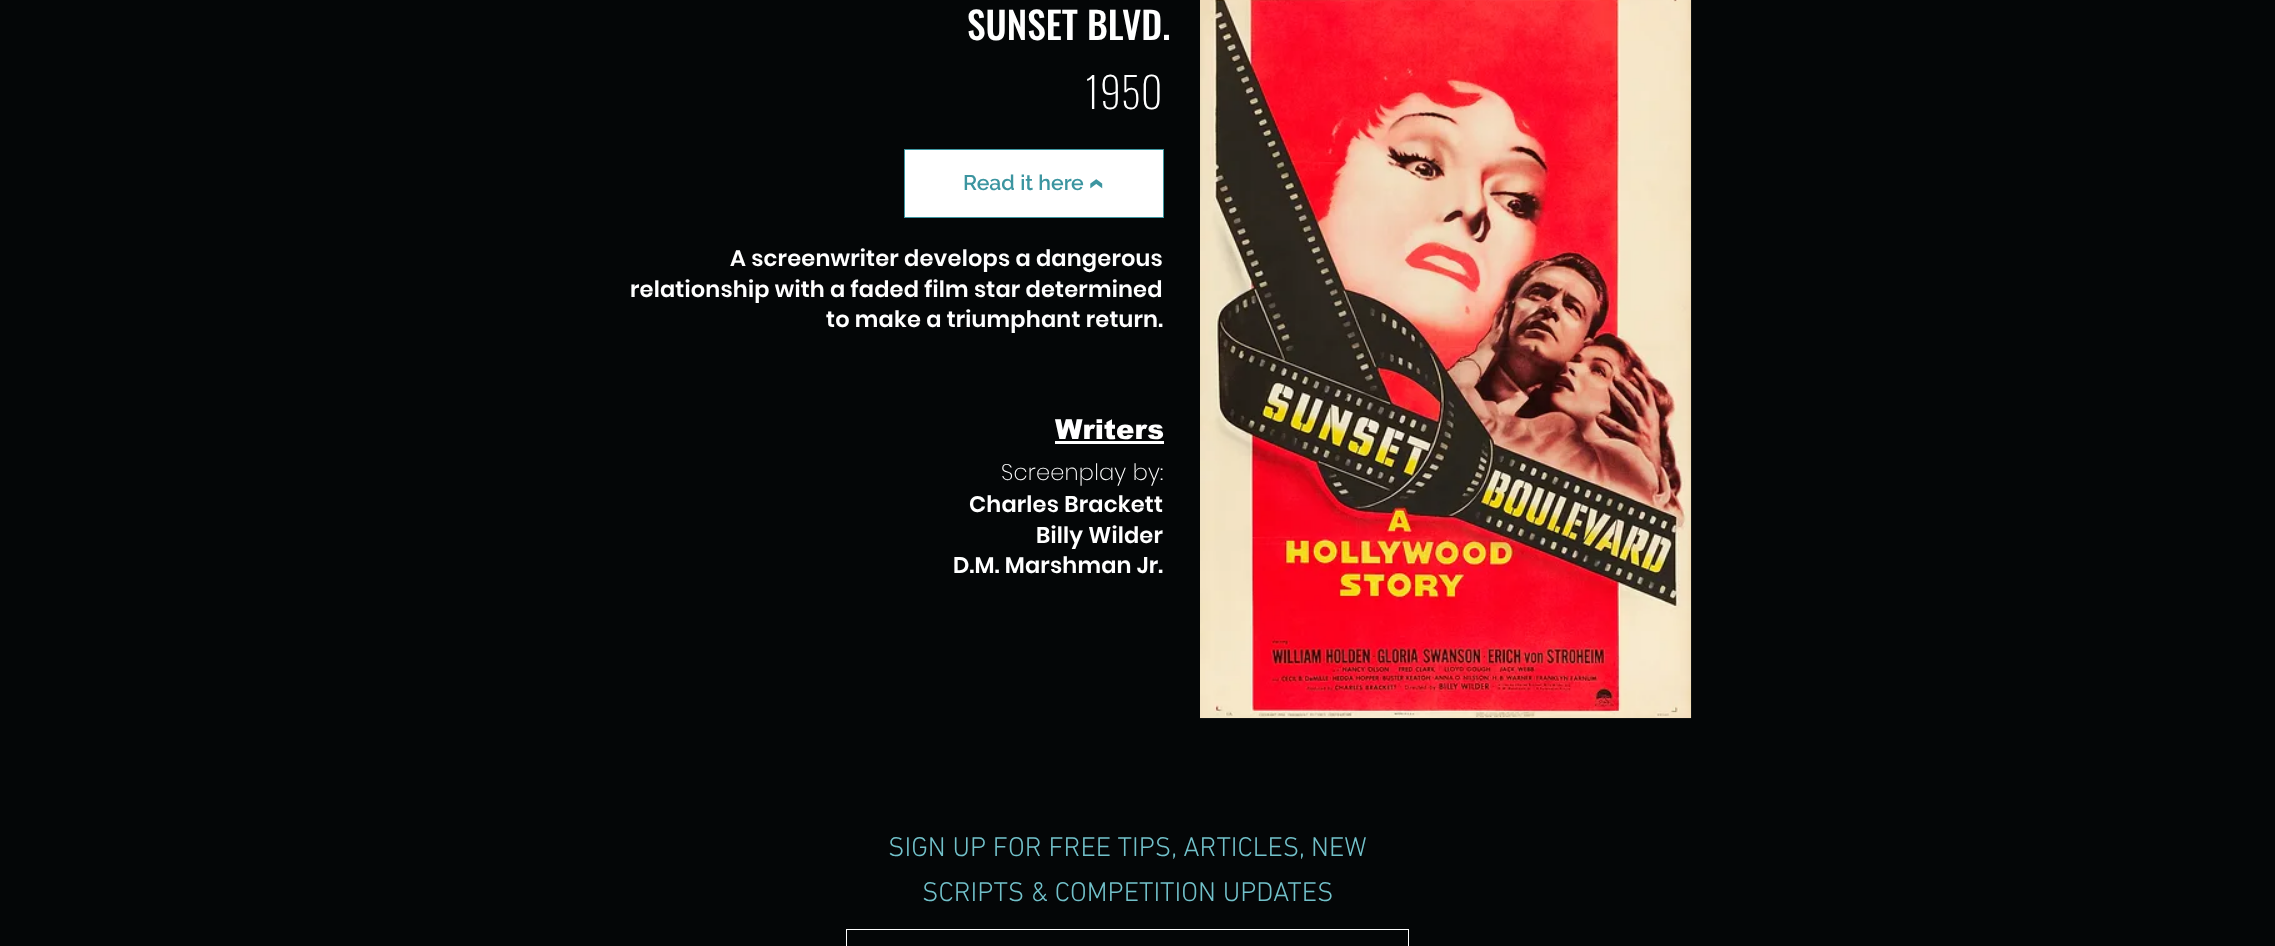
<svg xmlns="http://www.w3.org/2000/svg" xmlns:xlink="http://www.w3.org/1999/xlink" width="2275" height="946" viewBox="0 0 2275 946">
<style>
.cls-1{font:500 37.5px Oswald;fill:#ffffff}
.cls-2{font:200 42px Oswald;fill:#ffffff}
.cls-3{font:600 21.25px Raleway;fill:#3c95a0}
.cls-4{font:600 22.5px Poppins;letter-spacing:0.2px;fill:#ffffff}
.cls-5{font:900 27.5px arial;fill:#ffffff}
.cls-6{font:200 22.5px Poppins;letter-spacing:0.2px;fill:#ffffff}
.cls-7{font:300 27.5px 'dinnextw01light';fill:#72c1ca}
</style>
<rect width="100%" height="100%" fill="#040607"/>
<image xlink:href="image0.png" x="1200" y="0" width="492" height="719"/>
<rect fill="#ffffff" stroke="#3c95a0" x="904.5" y="149.5" width="259" height="68"/>
<image xlink:href="image1.png" x="1090" y="179" width="13" height="10"/>
<rect fill="#ffffff" x="1055" y="441" width="109" height="3"/>
<rect fill="none" stroke="#ffffff" x="846.5" y="929.5" width="562" height="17"/>
<text class="cls-1" x="967" y="40">SUNSET BLVD.</text>
<text class="cls-2" x="1085" y="109">1950</text>
<text class="cls-3" x="963" y="190">Read it here</text>
<text class="cls-4" x="730" y="266">A screenwriter develops a dangerous</text>
<text class="cls-4" x="630" y="297">relationship with a faded film star determined</text>
<text class="cls-4" x="826" y="327">to make a triumphant return.</text>
<text class="cls-5" x="1055" y="439">Writers</text>
<text class="cls-6" x="1001" y="480">Screenplay by:</text>
<text class="cls-4" x="969" y="512">Charles Brackett</text>
<text class="cls-4" x="1036" y="543">Billy Wilder</text>
<text class="cls-4" x="953" y="573">D.M. Marshman Jr.</text>
<text class="cls-7" x="888" y="856">SIGN UP FOR FREE TIPS, ARTICLES, NEW</text>
<text class="cls-7" x="922" y="901">SCRIPTS &amp; COMPETITION UPDATES</text>
</svg>
